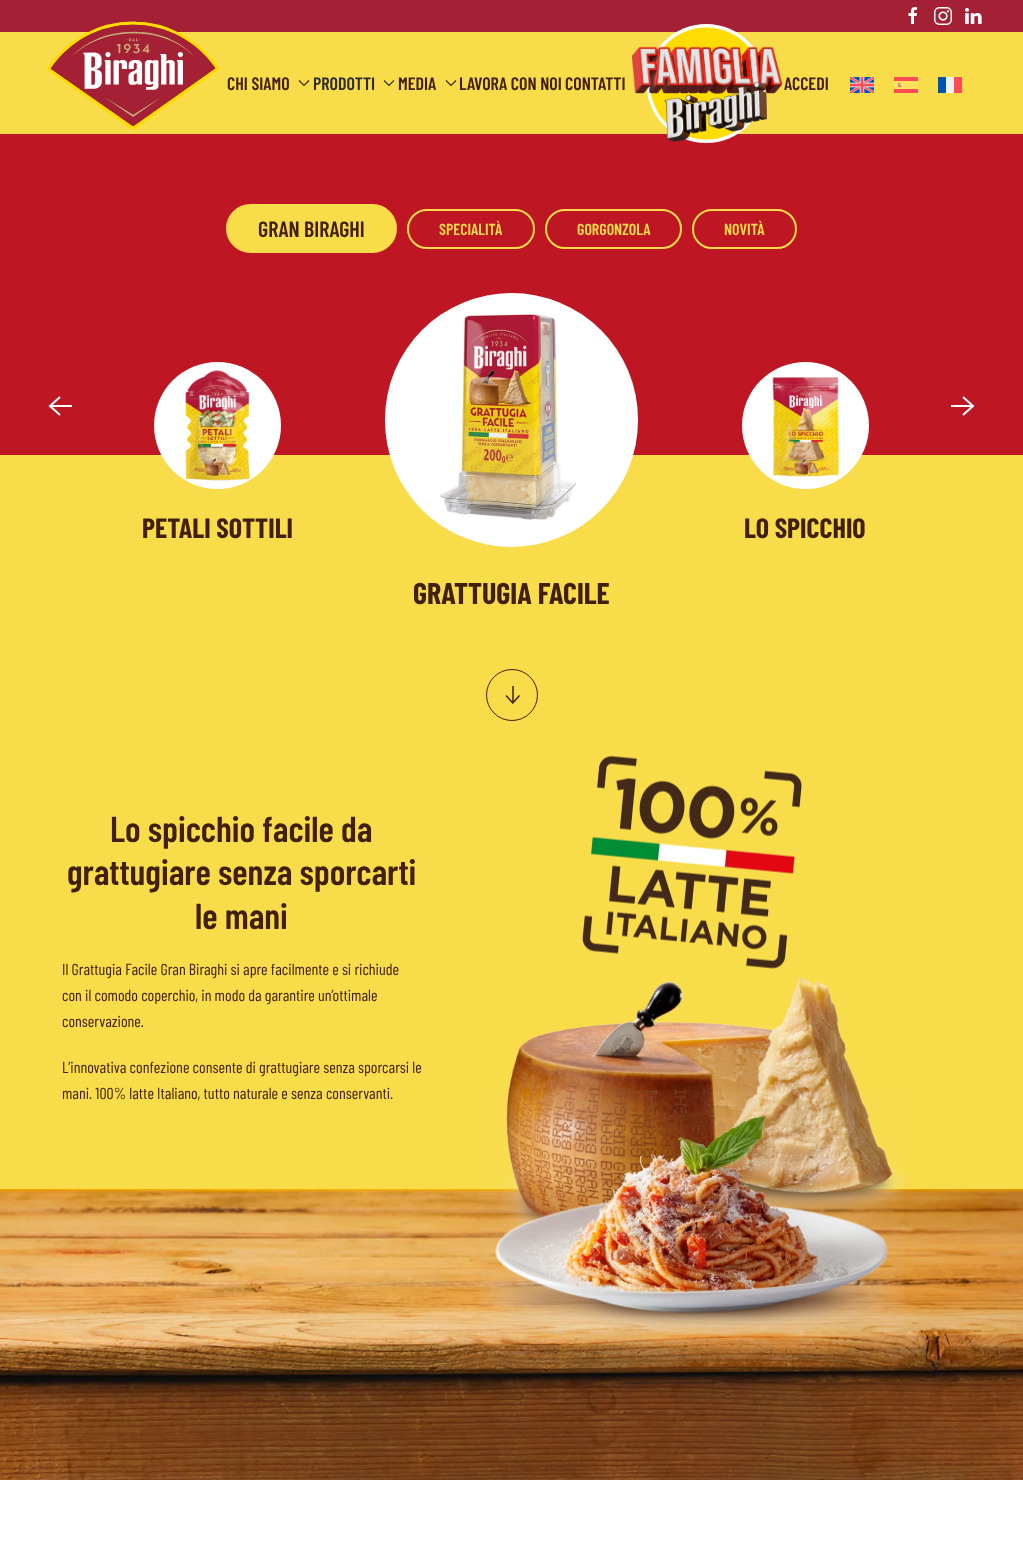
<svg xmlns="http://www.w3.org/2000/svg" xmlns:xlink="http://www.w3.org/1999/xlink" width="1023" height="1555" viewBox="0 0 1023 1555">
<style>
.cls-1{font:600 18px Barlow Condensed;fill:#422011}
.cls-2{font:600 18px Barlow Condensed;fill:#2d2e33}
.cls-3{font:600 22px Barlow Condensed;fill:#422011}
.cls-4{font:600 16px Barlow Condensed;fill:#f9dc4a}
.cls-5{font:bold 28px Barlow Condensed;fill:#422011}
.cls-6{font:bold 30px Barlow Condensed;fill:#422011}
.cls-7{font:600 36px Barlow Condensed;fill:#422011}
.cls-8{font:16px Barlow Condensed;fill:#422011}
</style>
<rect width="100%" height="100%" fill="#ffffff"/>
<rect fill="#a32035" x="0" y="0" width="1023" height="32"/>
<image xlink:href="image0.png" x="908" y="7" width="9" height="17"/>
<image xlink:href="image1.png" x="934" y="7" width="18" height="18"/>
<image xlink:href="image2.png" x="965" y="8" width="17" height="16"/>
<rect fill="#f9dc4a" x="0" y="32" width="1023" height="102"/>
<image xlink:href="image3.png" x="46" y="21" width="174" height="110"/>
<path fill="none" stroke="#422011" stroke-width="1.1" d="M299 80.5L304 85.5L309 80.5"/>
<path fill="none" stroke="#2d2e33" stroke-width="1.1" d="M384 80.5L389 85.5L394 80.5"/>
<path fill="none" stroke="#422011" stroke-width="1.1" d="M446 80.5L451 85.5L456 80.5"/>
<rect fill="#be1622" x="0" y="134" width="1023" height="321"/>
<image xlink:href="image4.png" x="632" y="24" width="150" height="119"/>
<image xlink:href="image5.png" x="850" y="77" width="24" height="16"/>
<image xlink:href="image6.png" x="894" y="77" width="24" height="16"/>
<rect fill="#0052b4" x="938" y="77" width="8" height="16"/>
<rect fill="#f0f0f0" x="946" y="77" width="8" height="16"/>
<rect fill="#ff4b55" x="954" y="77" width="8" height="16"/>
<rect fill="#f9dc4a" stroke="#f9dc4a" stroke-width="2" x="227" y="205" width="169" height="47" rx="23.5"/>
<rect fill="none" stroke="#f9dc4a" stroke-width="2" x="408" y="210" width="126" height="38" rx="19"/>
<rect fill="none" stroke="#f9dc4a" stroke-width="2" x="546" y="210" width="135" height="38" rx="19"/>
<rect fill="none" stroke="#f9dc4a" stroke-width="2" x="693" y="210" width="103" height="38" rx="19"/>
<path fill="none" stroke="#ffffff" stroke-width="2" d="M60 415L50 406L60 397"/>
<rect fill="#ffffff" x="50" y="405" width="22" height="2"/>
<path fill="none" stroke="#ffffff" stroke-width="2" d="M963 397L973 406L963 415"/>
<rect fill="#ffffff" x="951" y="405" width="22" height="2"/>
<rect fill="#f9dc4a" x="0" y="455" width="1023" height="734"/>
<circle fill="#ffffff" cx="217.5" cy="425.5" r="63.5"/>
<image xlink:href="image7.png" x="185" y="370" width="65" height="111"/>
<circle fill="#ffffff" cx="805.5" cy="425.5" r="63.5"/>
<image xlink:href="image8.png" x="772" y="377" width="68" height="100"/>
<rect fill="#ffffff" x="385" y="293" width="253" height="254" rx="126.5"/>
<image xlink:href="image9.png" x="440" y="314" width="136" height="206"/>
<circle fill="none" stroke="#422011" cx="512" cy="695" r="25.5"/>
<image xlink:href="image10.png" x="505" y="686" width="15" height="18"/>
<image xlink:href="image11.png" x="582" y="755" width="220" height="214"/>
<image xlink:href="image13.png" x="0" y="1189" width="1023" height="291"/>
<image xlink:href="image12.png" x="475" y="977" width="432" height="357"/>
<text class="cls-1" x="227" y="90">CHI SIAMO</text>
<text class="cls-2" x="313" y="90">PRODOTTI</text>
<text class="cls-1" x="398" y="90">MEDIA</text>
<text class="cls-1" x="459" y="90">LAVORA CON NOI</text>
<text class="cls-1" x="565" y="90">CONTATTI</text>
<text class="cls-1" x="784" y="90">ACCEDI</text>
<text class="cls-3" x="258" y="237">GRAN BIRAGHI</text>
<text class="cls-4" x="439" y="235">SPECIALITÀ</text>
<text class="cls-4" x="577" y="235">GORGONZOLA</text>
<text class="cls-4" x="724" y="235">NOVITÀ</text>
<text class="cls-5" x="142" y="538">PETALI SOTTILI</text>
<text class="cls-5" x="744" y="538">LO SPICCHIO</text>
<text class="cls-6" x="413" y="604">GRATTUGIA FACILE</text>
<text class="cls-7" x="110" y="842">Lo spicchio facile da</text>
<text class="cls-7" x="67" y="885">grattugiare senza sporcarti</text>
<text class="cls-7" x="195" y="929">le mani</text>
<text class="cls-8"><tspan x="62" y="975">Il Grattugia Facile Gran Biraghi si apre facilmente e si richiude</tspan><tspan x="62" y="1001">con il comodo coperchio, in modo da garantire un’ottimale</tspan><tspan x="62" y="1027">conservazione.</tspan></text>
<text class="cls-8"><tspan x="62" y="1073">L’innovativa confezione consente di grattugiare senza sporcarsi le</tspan><tspan x="62" y="1099">mani. 100% latte Italiano, tutto naturale e senza conservanti.</tspan></text>
</svg>
